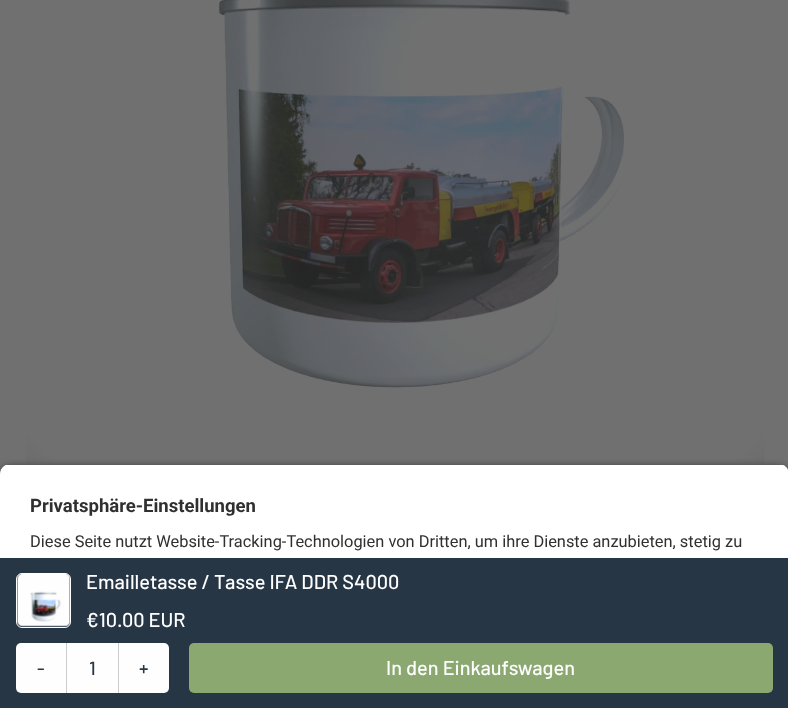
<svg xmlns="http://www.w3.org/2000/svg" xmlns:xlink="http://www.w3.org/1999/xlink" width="788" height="708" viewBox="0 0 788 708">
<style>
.cls-1{font:bold 18.5px Roboto;fill:#303030}
.cls-2{font:16.4px Roboto;fill:#303030}
.cls-3{font:500 20px Barlow;fill:#fefeff}
.cls-4{font:500 19px Barlow;fill:#2e363c}
.cls-5{font:500 19px Barlow;fill:#273744}
</style>
<defs>
<clipPath id="clip1"><path d="M10 464H779C784.5 464 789 468.5 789 474V578H0V474C0 468.5 4.5 464 10 464Z"/></clipPath>
</defs>
<rect width="100%" height="100%" fill="#707070"/>
<image xlink:href="image0.png" x="25" y="0" width="740" height="464"/>
<rect fill="#000000" fill-opacity="0.8" filter="blur(4.5px)" x="0" y="468" width="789" height="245" rx="10"/>
<g clip-path="url(#clip1)">
<rect fill="#ffffff" x="0" y="465" width="788" height="93"/>
</g>
<rect fill="#263644" x="0" y="558" width="788" height="150"/>
<image xlink:href="image1.png" x="17" y="573" width="54" height="54"/>
<rect fill="none" stroke="#ffffff" x="16.5" y="573.5" width="54" height="54" rx="5.5"/>
<rect fill="#fefeff" x="16" y="643" width="153" height="50" rx="5"/>
<rect fill="#cccccc" x="66" y="643" width="1" height="50"/>
<rect fill="#cccccc" x="118" y="643" width="1" height="50"/>
<rect fill="#8aa86f" x="189" y="643" width="584" height="50" rx="5"/>
<text class="cls-1" x="30" y="512">Privatsphäre-Einstellungen</text>
<text class="cls-2" x="30" y="547">Diese Seite nutzt Website-Tracking-Technologien von Dritten, um ihre Dienste anzubieten, stetig zu</text>
<text class="cls-3"><tspan x="86" y="589">Emailletasse / Tasse IFA DDR S4000</tspan><tspan x="86" y="627">€10.00 EUR</tspan></text>
<text class="cls-4" x="37" y="675">-</text>
<text class="cls-5" x="89" y="675">1</text>
<text class="cls-5" x="139" y="675">+</text>
<text class="cls-3" x="386" y="675">In den Einkaufswagen</text>
</svg>
